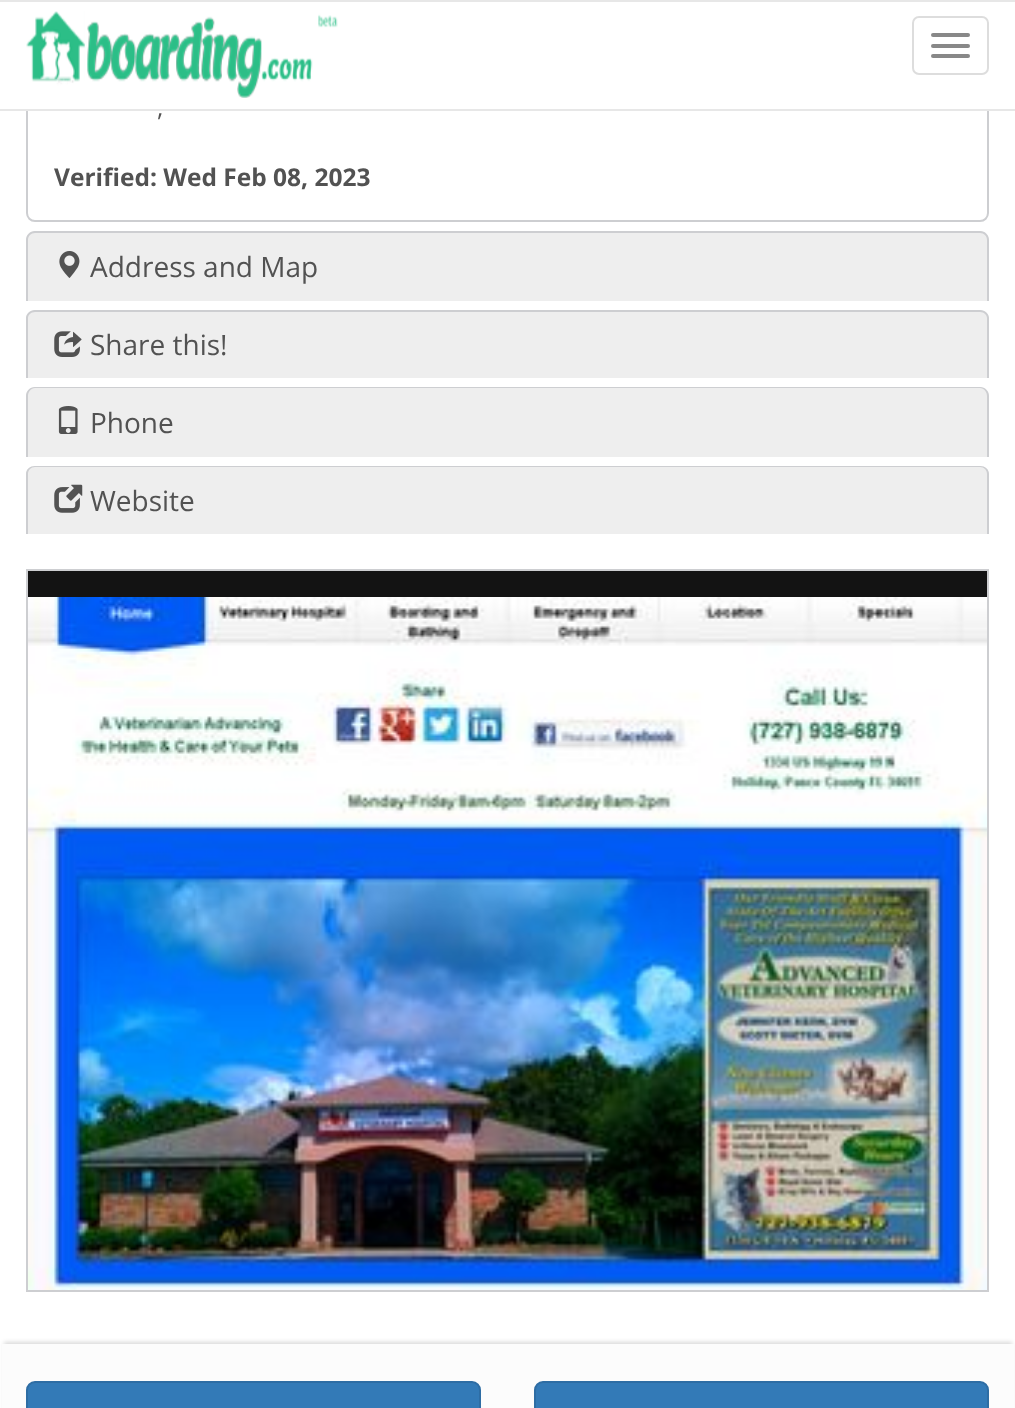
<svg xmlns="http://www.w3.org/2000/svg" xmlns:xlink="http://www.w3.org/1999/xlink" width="1015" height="1408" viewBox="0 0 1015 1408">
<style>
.cls-1{font:24.5px Open Sans;fill:#525252}
.cls-2{font:bold 24.5px Open Sans;fill:#525252}
.cls-3{font:28px Open Sans;fill:#525252}
</style>
<rect width="100%" height="100%" fill="#ffffff"/>
<path fill="none" stroke="#cdced1" stroke-width="2" d="M27-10H988V213C988 217.5 984.5 221 980 221H35C30.5 221 27 217.5 27 213Z"/>
<rect fill="#ffffff" x="26" y="2" width="963" height="107"/>
<rect fill="#e7e7e7" x="0" y="0" width="1015" height="2"/>
<rect fill="#e7e7e7" x="0" y="109" width="1015" height="2"/>
<image xlink:href="image0.png" x="26" y="11" width="312" height="87"/>
<rect fill="none" stroke="#dddddd" stroke-width="2" x="913" y="17" width="75" height="57" rx="6"/>
<rect fill="#888888" x="931" y="33" width="39" height="4" rx="2"/>
<rect fill="#888888" x="931" y="44" width="39" height="4" rx="2"/>
<rect fill="#888888" x="931" y="54" width="39" height="4" rx="2"/>
<path fill="#eeeeee" d="M35 231H980C985 231 989 235 989 240V301H26V240C26 235 30 231 35 231Z"/>
<path fill="#cdced1" fill-rule="evenodd" d="M35 231H980C985 231 989 235 989 240V301H26V240C26 235 30 231 35 231ZM35 233H980C984 233 987 236 987 240V301H28V240C28 236 31 233 35 233Z"/>
<image xlink:href="image1.png" x="59" y="251" width="21" height="27"/>
<path fill="#eeeeee" d="M35 310H980C985 310 989 314 989 319V378H26V319C26 314 30 310 35 310Z"/>
<path fill="#cdced1" fill-rule="evenodd" d="M35 310H980C985 310 989 314 989 318V378H26V318C26 314 30 310 35 310ZM35 312H980C984 312 987 315 987 318V378H28V318C28 315 31 312 35 312Z"/>
<image xlink:href="image2.png" x="54" y="331" width="28" height="26"/>
<path fill="#eeeeee" d="M35 387H980C985 387 989 391 989 396V457H26V396C26 391 30 387 35 387Z"/>
<path fill="#cdced1" fill-rule="evenodd" d="M35 387H980C985 387 989 391 989 396V457H26V396C26 391 30 387 35 387ZM35 388H980C984 388 987 392 987 396V457H28V396C28 392 31 388 35 388Z"/>
<image xlink:href="image3.png" x="58" y="406" width="20" height="28"/>
<path fill="#eeeeee" d="M35 466H980C985 466 989 470 989 475V534H26V475C26 470 30 466 35 466Z"/>
<path fill="#cdced1" fill-rule="evenodd" d="M35 466H980C985 466 989 469 989 474V534H26V474C26 469 30 466 35 466ZM35 467H980C984 467 987 470 987 474V534H28V474C28 470 31 467 35 467Z"/>
<image xlink:href="image4.png" x="54" y="484" width="29" height="29"/>
<rect fill="#131313" x="28" y="571" width="959" height="26"/>
<rect fill="none" stroke="#cdced1" stroke-width="2" x="27" y="570" width="961" height="721"/>
<image xlink:href="image5.png" x="28" y="597" width="959" height="693"/>
<rect fill="#000000" fill-opacity="0.15" filter="blur(2px)" x="4" y="1342" width="1008" height="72"/>
<rect fill="#fcfcfc" x="2" y="1344" width="1012" height="64"/>
<rect fill="#337ab7" stroke="#2e6da4" stroke-width="2" x="27" y="1382" width="453" height="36" rx="8"/>
<rect fill="#337ab7" stroke="#2e6da4" stroke-width="2" x="535" y="1382" width="453" height="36" rx="8"/>
<text class="cls-1" x="157" y="116">,</text>
<text class="cls-2" x="54" y="186">Verified: Wed Feb 08, 2023</text>
<text class="cls-3" x="90" y="277">Address and Map</text>
<text class="cls-3" x="90" y="355">Share this!</text>
<text class="cls-3" x="90" y="433">Phone</text>
<text class="cls-3" x="90" y="511">Website</text>
</svg>
